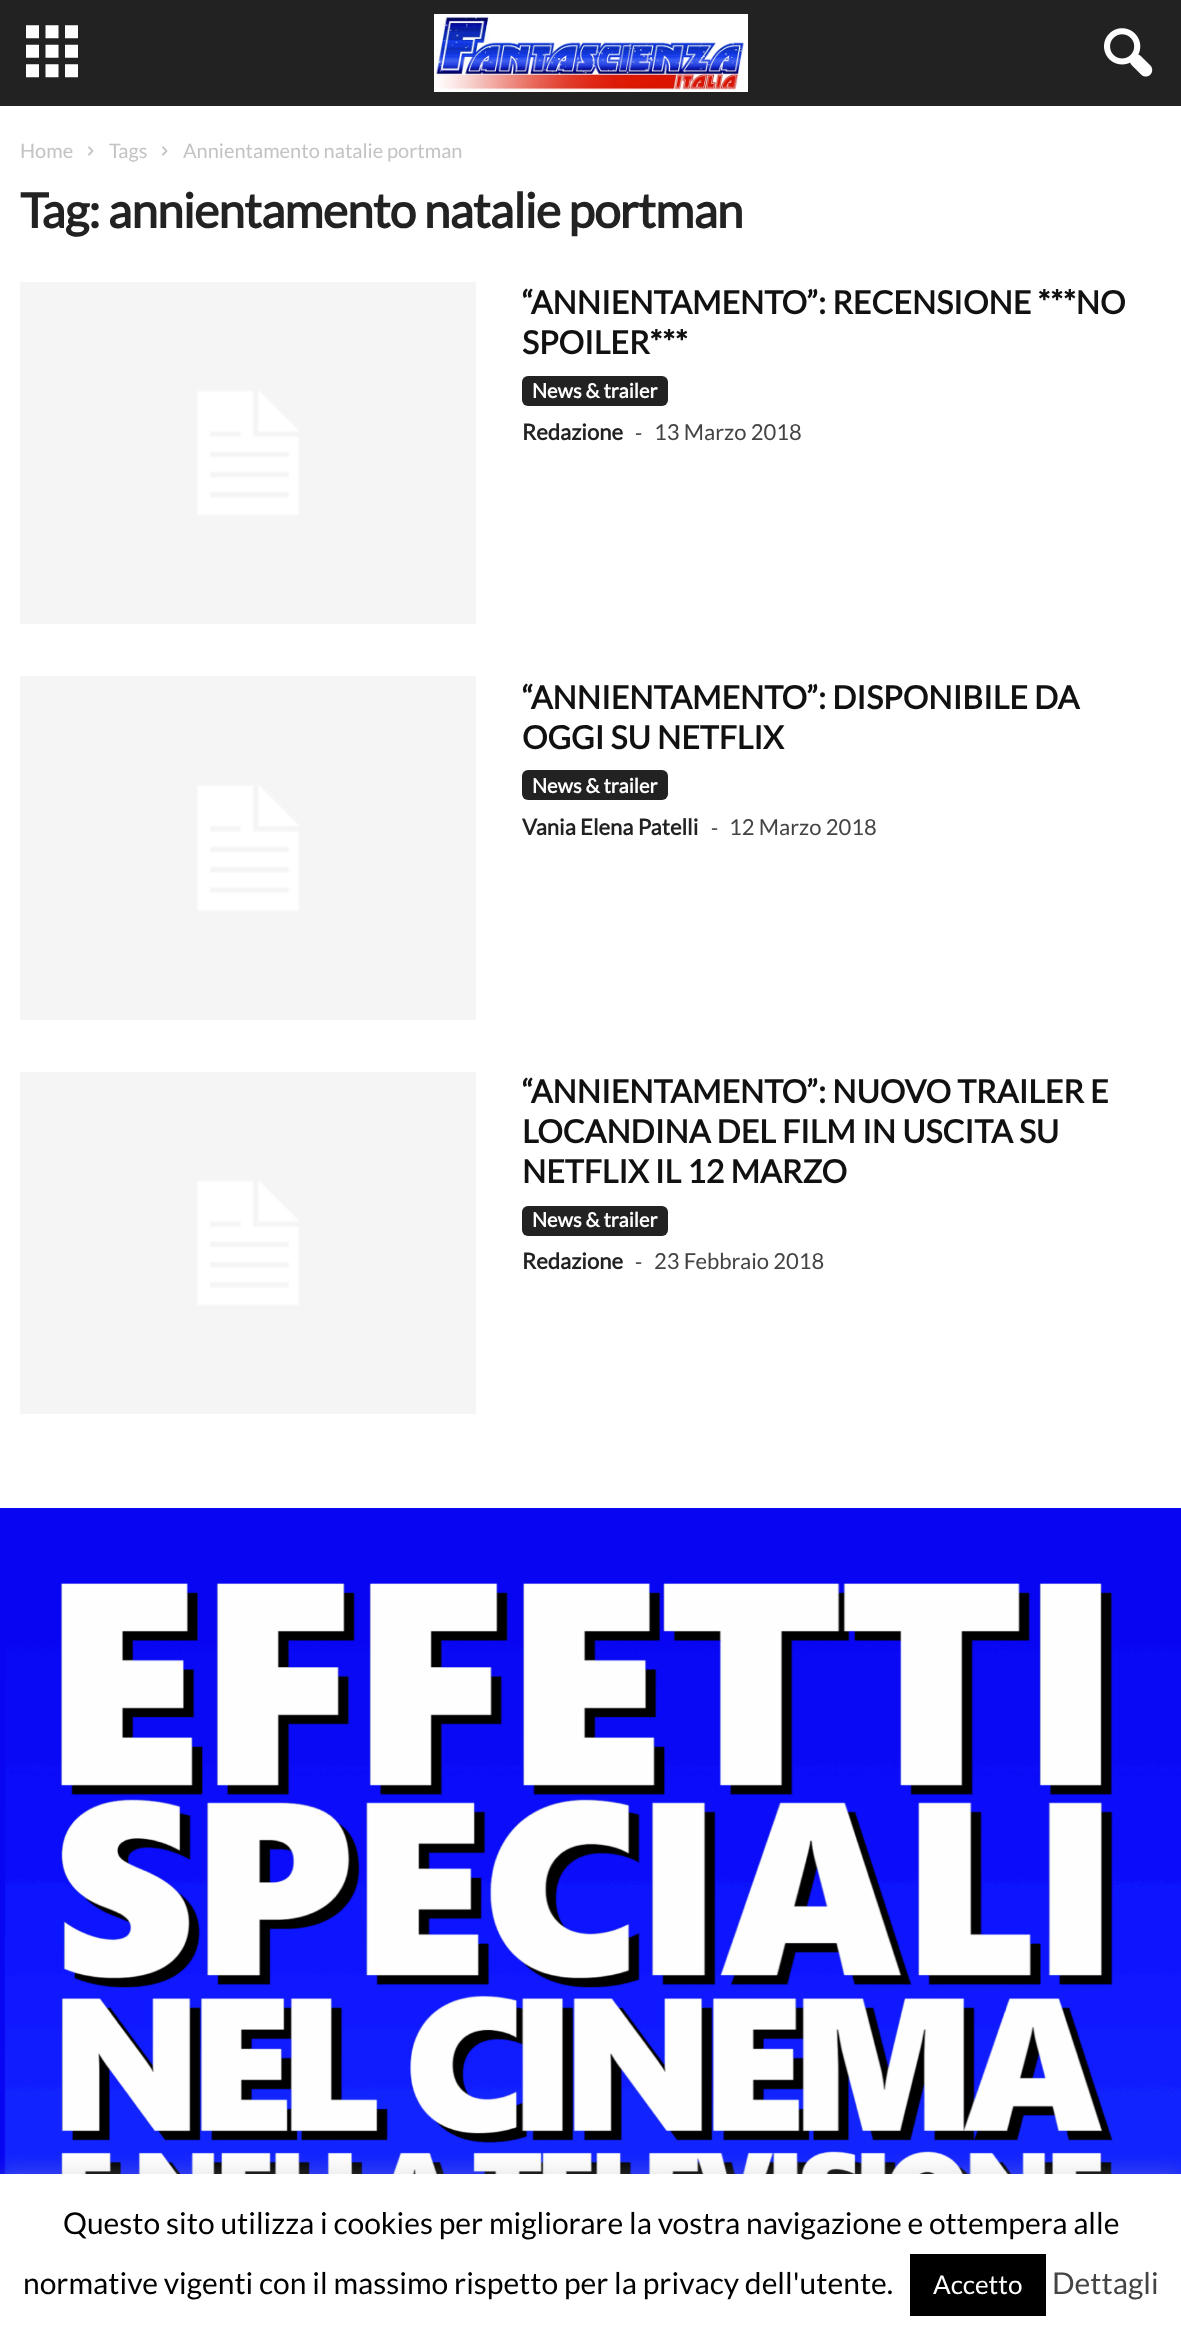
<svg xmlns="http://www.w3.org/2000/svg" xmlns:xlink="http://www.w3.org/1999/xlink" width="1181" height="2339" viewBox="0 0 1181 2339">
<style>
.cls-1{font:20px Lato;fill:#c3c3c3}
.cls-2{font:bold 48px Lato;letter-spacing:-0.95px;fill:#222222}
.cls-3{font:bold 32px Lato;fill:#111111}
.cls-4{font:bold 20px Lato;fill:#ffffff}
.cls-5{font:bold 22px Lato;fill:#222222}
.cls-6{font:22px Open Sans;fill:#444444}
.cls-7{font:22px Lato;fill:#444444}
.cls-8{font:30px Lato;fill:#000000}
.cls-9{font:26px Lato;fill:#ffffff}
.cls-10{font:30px Lato;fill:#444444}
</style>
<rect width="100%" height="100%" fill="#ffffff"/>
<rect fill="#222222" x="0" y="0" width="1181" height="106"/>
<image xlink:href="image0.png" x="26" y="25" width="52" height="53"/>
<image xlink:href="image1.png" x="434" y="14" width="314" height="78"/>
<image xlink:href="image2.png" x="1104" y="28" width="49" height="49"/>
<image xlink:href="image3.png" x="88" y="146" width="6" height="10"/>
<image xlink:href="image3.png" x="162" y="146" width="6" height="10"/>
<image xlink:href="image4.png" x="20" y="282" width="456" height="342"/>
<rect fill="#222222" x="522" y="376" width="146" height="30" rx="6"/>
<image xlink:href="image5.png" x="20" y="676" width="456" height="344"/>
<rect fill="#222222" x="522" y="770" width="146" height="30" rx="6"/>
<image xlink:href="image4.png" x="20" y="1072" width="456" height="342"/>
<rect fill="#222222" x="522" y="1206" width="146" height="30" rx="6"/>
<image xlink:href="image6.png" x="0" y="1508" width="1181" height="666"/>
<rect fill="#acabab" fill-opacity="0.3" filter="blur(10px)" x="0" y="2172" width="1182" height="166"/>
<rect fill="#ffffff" x="0" y="2174" width="1181" height="165"/>
<rect fill="#000000" x="910" y="2254" width="136" height="62"/>
<text class="cls-1" x="20" y="158">Home</text>
<text class="cls-1" x="109" y="158">Tags</text>
<text class="cls-1" x="183" y="158">Annientamento natalie portman</text>
<text class="cls-2" x="20" y="228">Tag: annientamento natalie portman</text>
<text class="cls-3"><tspan x="522" y="314">“ANNIENTAMENTO”: RECENSIONE ***NO</tspan><tspan x="522" y="354">SPOILER***</tspan></text>
<text class="cls-4" x="532" y="398">News &amp; trailer</text>
<text class="cls-5" x="522" y="440">Redazione</text>
<text class="cls-6" x="635" y="440">-</text>
<text class="cls-7" x="654" y="440">13 Marzo 2018</text>
<text class="cls-3"><tspan x="522" y="709">“ANNIENTAMENTO”: DISPONIBILE DA</tspan><tspan x="522" y="749">OGGI SU NETFLIX</tspan></text>
<text class="cls-4" x="532" y="793">News &amp; trailer</text>
<text class="cls-5" x="522" y="835">Vania Elena Patelli</text>
<text class="cls-6" x="711" y="835">-</text>
<text class="cls-7" x="729" y="835">12 Marzo 2018</text>
<text class="cls-3"><tspan x="522" y="1103">“ANNIENTAMENTO”: NUOVO TRAILER E</tspan><tspan x="522" y="1143">LOCANDINA DEL FILM IN USCITA SU</tspan><tspan x="522" y="1183">NETFLIX IL 12 MARZO</tspan></text>
<text class="cls-4" x="532" y="1227">News &amp; trailer</text>
<text class="cls-5" x="522" y="1269">Redazione</text>
<text class="cls-6" x="635" y="1269">-</text>
<text class="cls-7" x="654" y="1269">23 Febbraio 2018</text>
<text class="cls-8" x="63" y="2234">Questo sito utilizza i cookies per migliorare la vostra navigazione e ottempera alle</text>
<text class="cls-8" x="23" y="2294">normative vigenti con il massimo rispetto per la privacy dell'utente.</text>
<text class="cls-9" x="933" y="2294">Accetto</text>
<text class="cls-10" x="1052" y="2294">Dettagli</text>
</svg>
